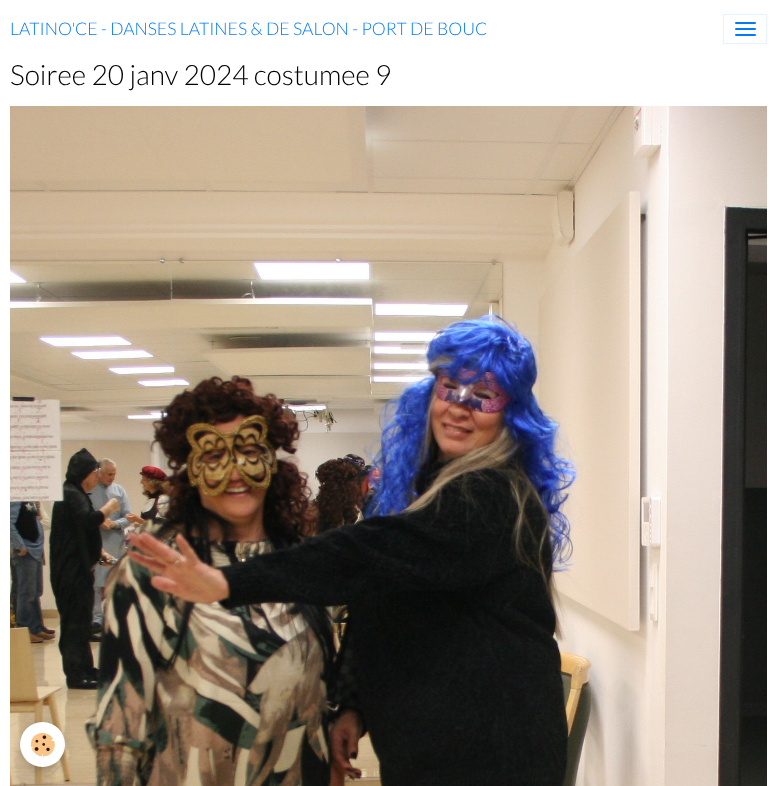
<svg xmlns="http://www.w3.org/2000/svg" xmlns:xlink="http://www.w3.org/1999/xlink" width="777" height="786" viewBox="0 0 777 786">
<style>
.cls-1{font:300 17.5px Lato;fill:#007bff}
.cls-2{font:300 28px Lato;fill:#000000}
</style>
<rect width="100%" height="100%" fill="#ffffff"/>
<rect fill="none" stroke="#e6f2ff" x="723.5" y="14.5" width="43" height="29"/>
<rect fill="#007bff" x="735" y="22" width="21" height="2" rx="1"/>
<rect fill="#007bff" x="735" y="28" width="21" height="2" rx="1"/>
<rect fill="#007bff" x="735" y="34" width="21" height="2" rx="1"/>
<image xlink:href="image0.png" x="10" y="106" width="757" height="680"/>
<rect fill="#000000" fill-opacity="0.24" filter="blur(5px)" x="20" y="725" width="45" height="45" rx="22.5"/>
<circle fill="#ffffff" cx="42.5" cy="744.5" r="22.5"/>
<image xlink:href="image1.png" x="30" y="732" width="25" height="25"/>
<text class="cls-1" x="10" y="35">LATINO'CE - DANSES LATINES &amp; DE SALON - PORT DE BOUC</text>
<text class="cls-2" x="10" y="85">Soiree 20 janv 2024 costumee 9</text>
</svg>
